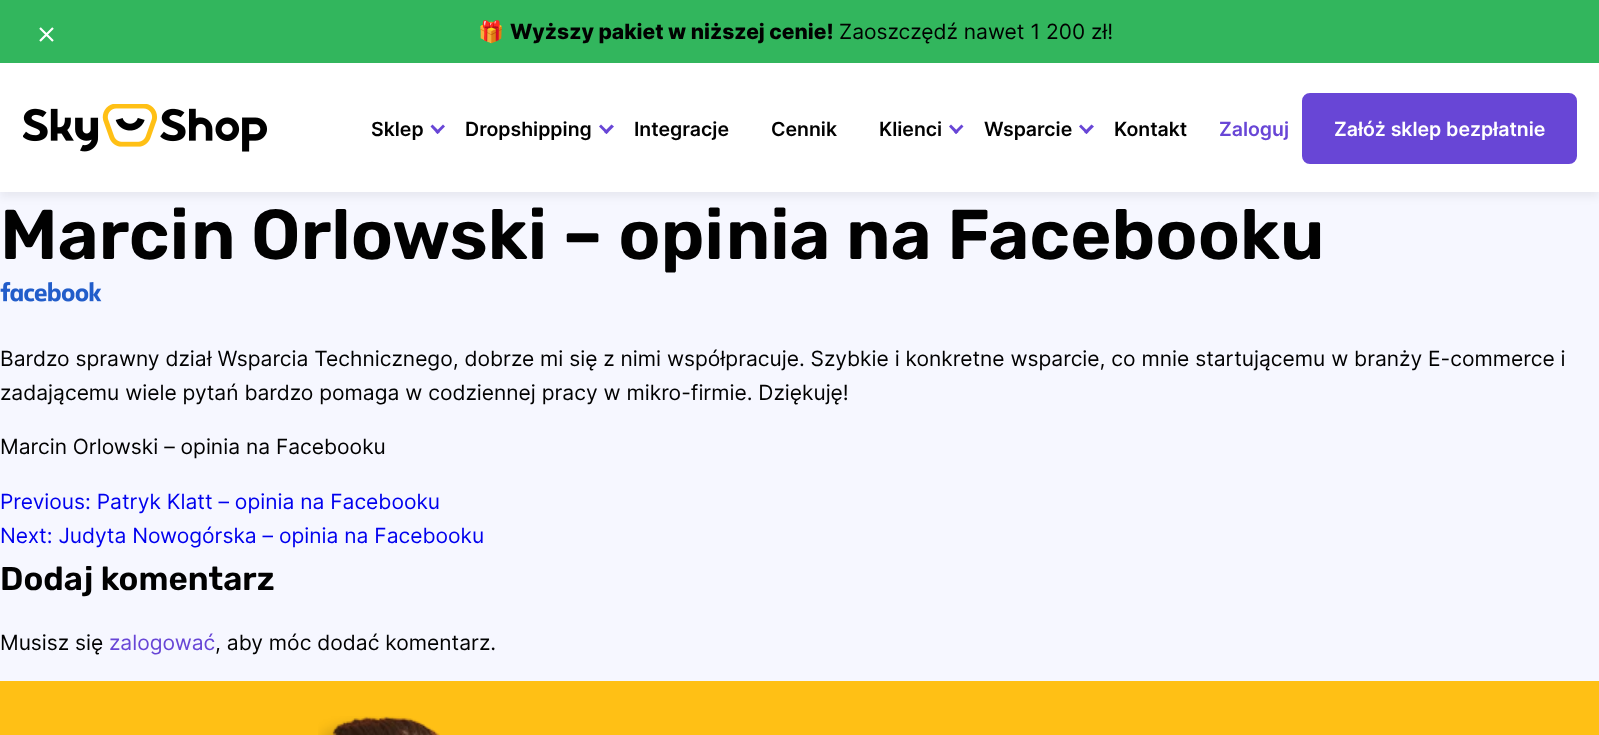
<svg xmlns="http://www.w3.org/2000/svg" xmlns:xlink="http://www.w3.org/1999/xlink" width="1599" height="735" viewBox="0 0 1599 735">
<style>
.cls-1{font:21px Noto Color Emoji;fill:#010101}
.cls-2{font:800 21px Inter;fill:#010101}
.cls-3{font:21px Inter;fill:#010101}
.cls-4{font:600 19.5px Inter;fill:#010101}
.cls-5{font:600 19.5px Inter;fill:#6846d6}
.cls-6{font:600 19.5px Inter;fill:#ffffff}
.cls-7{font:600 70.5px Rubik;fill:#010101}
.cls-8{font:21px Inter;fill:#0000ee}
.cls-9{font:600 33px Rubik;fill:#010101}
.cls-10{font:21px Inter;fill:#6846d6}
</style>
<rect width="100%" height="100%" fill="#f6f7ff"/>
<rect fill="#000000" fill-opacity="0.06" filter="blur(4.5px)" x="0" y="68" width="1599" height="129"/>
<rect fill="#32b65d" x="0" y="0" width="1599" height="63"/>
<path fill="none" stroke="#ffffff" stroke-width="2.2" d="M40 28L53 41M53 28L40 41"/>
<rect fill="#ffffff" x="0" y="63" width="1599" height="129"/>
<image xlink:href="image0.png" x="23" y="104" width="244" height="48"/>
<path fill="#6846d6" d="M443 124.5L445 126.5L437.5 134L435.5 132Z"/>
<path fill="#6846d6" d="M432.5 124.5L440 132L437.5 134L430.5 126.5Z"/>
<path fill="#6846d6" d="M611.5 124.5L614 126.5L606.5 134L604 132Z"/>
<path fill="#6846d6" d="M601 124.5L608.5 132L606.5 134L599 126.5Z"/>
<path fill="#6846d6" d="M961.5 124.5L963.5 126.5L956 134L954 132Z"/>
<path fill="#6846d6" d="M951 124.5L958.5 132L956 134L949 126.5Z"/>
<path fill="#6846d6" d="M1091.5 124.5L1094 126.5L1086.5 134L1084 132Z"/>
<path fill="#6846d6" d="M1081 124.5L1088.5 132L1086.5 134L1079 126.5Z"/>
<rect fill="#6846d6" stroke="#6846d6" stroke-width="2" x="1303" y="94" width="273" height="69" rx="7"/>
<image xlink:href="image1.png" x="0" y="282" width="102" height="20"/>
<rect fill="#ffc015" x="0" y="681" width="1599" height="54"/>
<image xlink:href="image2.png" x="318" y="716" width="122" height="19"/>
<text class="cls-1" x="478" y="39">🎁</text>
<text class="cls-2" x="510" y="39">Wyższy pakiet w niższej cenie!</text>
<text class="cls-3" x="839" y="39">Zaoszczędź nawet 1 200 zł!</text>
<text class="cls-4" x="371" y="136">Sklep</text>
<text class="cls-4" x="465" y="136">Dropshipping</text>
<text class="cls-4" x="634" y="136">Integracje</text>
<text class="cls-4" x="771" y="136">Cennik</text>
<text class="cls-4" x="879" y="136">Klienci</text>
<text class="cls-4" x="984" y="136">Wsparcie</text>
<text class="cls-4" x="1114" y="136">Kontakt</text>
<text class="cls-5" x="1219" y="136">Zaloguj</text>
<text class="cls-6" x="1334" y="136">Załóż sklep bezpłatnie</text>
<text class="cls-7" x="0" y="259">Marcin Orlowski – opinia na Facebooku</text>
<text class="cls-3"><tspan x="0" y="366">Bardzo sprawny dział Wsparcia Technicznego, dobrze mi się z nimi współpracuje. Szybkie i konkretne wsparcie, co mnie startującemu w branży E-commerce i</tspan><tspan x="0" y="400">zadającemu wiele pytań bardzo pomaga w codziennej pracy w mikro-firmie. Dziękuję!</tspan></text>
<text class="cls-3" x="0" y="454">Marcin Orlowski – opinia na Facebooku</text>
<text class="cls-8"><tspan x="0" y="509">Previous: Patryk Klatt – opinia na Facebooku</tspan><tspan x="0" y="543">Next: Judyta Nowogórska – opinia na Facebooku</tspan></text>
<text class="cls-9" x="0" y="590">Dodaj komentarz</text>
<text class="cls-3" x="0" y="650">Musisz się</text>
<text class="cls-10" x="109" y="650">zalogować</text>
<text class="cls-3" x="215" y="650">, aby móc dodać komentarz.</text>
</svg>
